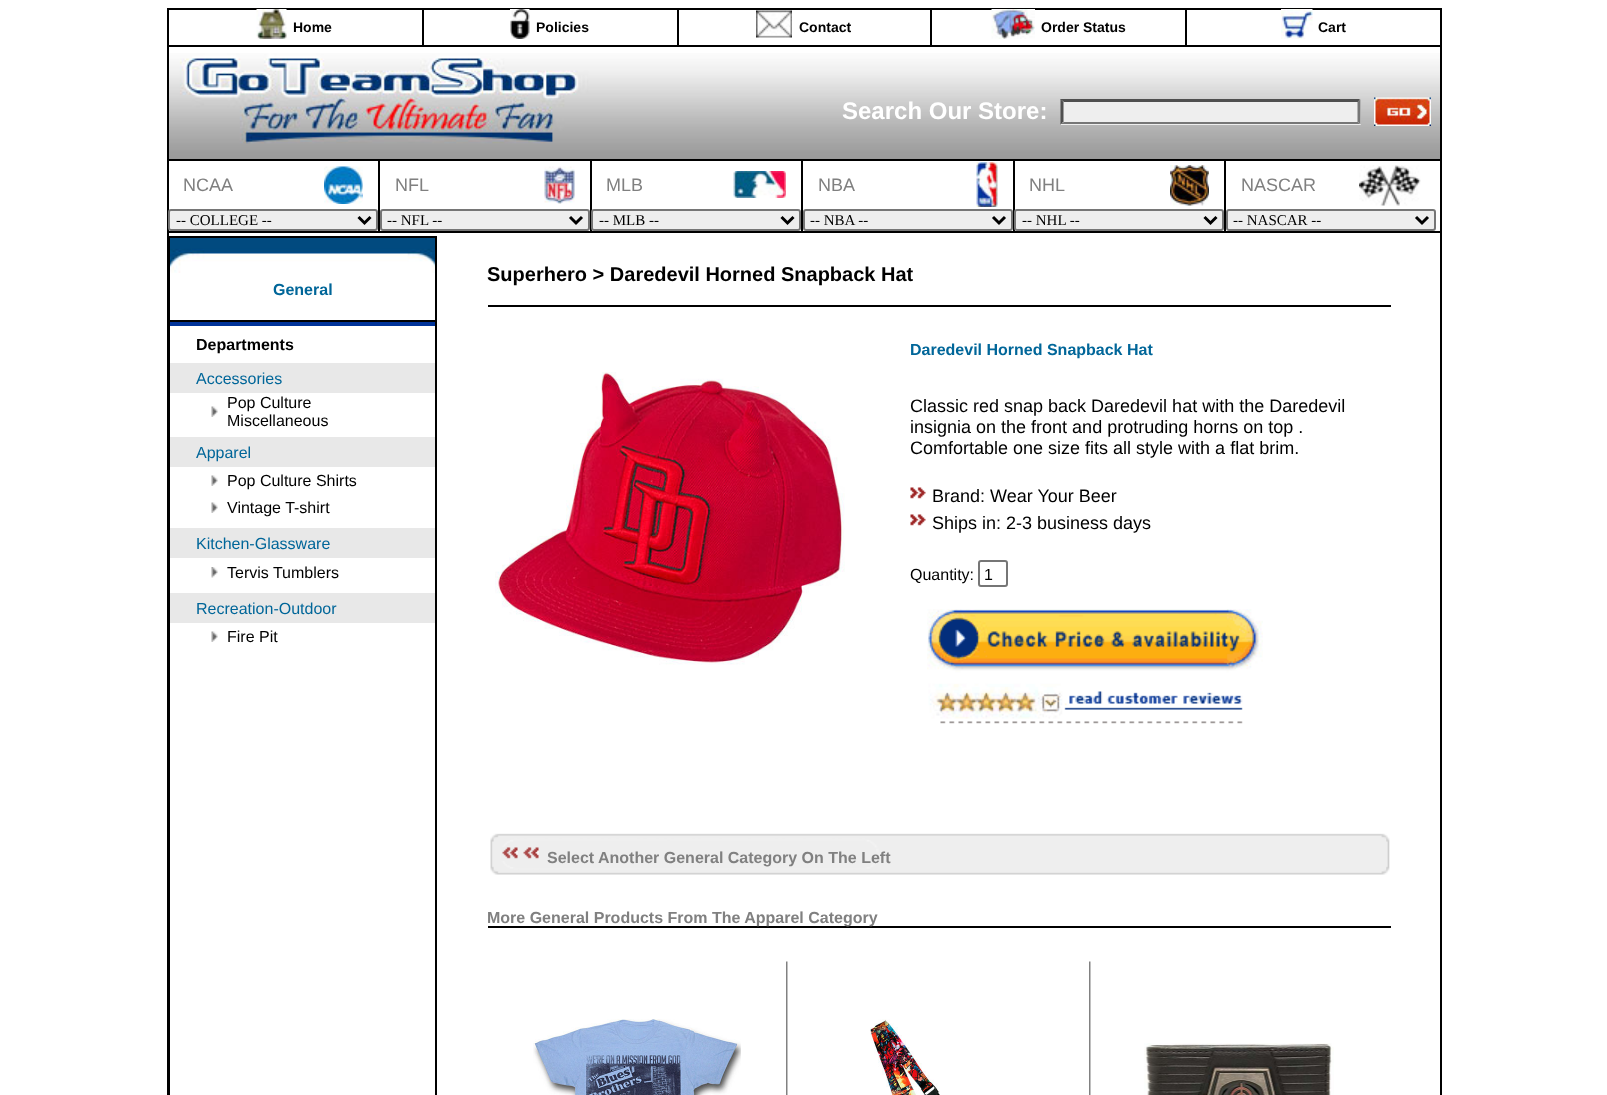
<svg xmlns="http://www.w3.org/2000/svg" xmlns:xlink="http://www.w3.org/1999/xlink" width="1607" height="1095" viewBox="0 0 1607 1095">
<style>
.cls-1{font:bold 14px Liberation Sans;fill:#000000}
.cls-2{font:bold 24px Liberation Sans;fill:#ffffff}
.cls-3{font:18px Liberation Sans;fill:#808080}
.cls-4{font:15px Liberation Serif;fill:#000000}
.cls-5{font:bold 16px Liberation Sans;fill:#006699}
.cls-6{font:bold 16px Liberation Sans;fill:#000000}
.cls-7{font:16px Liberation Sans;fill:#006699}
.cls-8{font:16px Liberation Sans;fill:#000000}
.cls-9{font:bold 20px Liberation Sans;fill:#000000}
.cls-10{font:18px Liberation Sans;fill:#000000}
.cls-11{font:bold 16px Liberation Sans;fill:#808080}
</style>
<rect width="100%" height="100%" fill="#ffffff"/>
<rect fill="#000000" x="167" y="8" width="1275" height="2"/>
<rect fill="#000000" x="1440" y="8" width="2" height="1087"/>
<rect fill="#000000" x="168" y="231" width="1272" height="2"/>
<rect fill="#000000" x="168" y="236" width="269" height="2"/>
<rect fill="#003399" x="170" y="322" width="267" height="4"/>
<rect fill="#000000" x="435" y="236" width="2" height="859"/>
<rect fill="#000000" x="169" y="236" width="1" height="859"/>
<rect fill="#000000" x="168" y="320" width="269" height="2"/>
<rect fill="#000000" x="167" y="8" width="2" height="1087"/>
<image xlink:href="image0.png" x="256" y="9" width="31" height="30"/>
<rect fill="#000000" x="167" y="45" width="1275" height="2"/>
<rect fill="#000000" x="422" y="8" width="2" height="39"/>
<image xlink:href="image1.png" x="510" y="9" width="20" height="30"/>
<rect fill="#000000" x="677" y="8" width="2" height="39"/>
<image xlink:href="image2.png" x="756" y="10" width="36" height="28"/>
<rect fill="#000000" x="930" y="8" width="2" height="39"/>
<image xlink:href="image3.png" x="991" y="9" width="44" height="30"/>
<rect fill="#000000" x="1185" y="8" width="2" height="39"/>
<image xlink:href="image4.png" x="1281" y="9" width="32" height="30"/>
<image xlink:href="image5.png" x="169" y="53" width="1271" height="106"/>
<rect fill="#000000" x="167" y="159" width="1275" height="2"/>
<rect fill="#eeeeee" x="1061" y="99" width="300" height="26"/>
<path fill="#4f4f4f" d="M1060 99H1360L1358 102H1064Z"/>
<path fill="#767676" d="M1360.5 99V124.5L1357.5 121.5V102Z"/>
<path fill="#767676" d="M1360 124H1060L1064 122H1358Z"/>
<path fill="#4f4f4f" d="M1060.5 124.5V99L1063.5 102V121.5Z"/>
<image xlink:href="image6.png" x="1374" y="97" width="57" height="29"/>
<image xlink:href="image7.png" x="324" y="166" width="39" height="38"/>
<rect fill="#eeeeee" stroke="#767676" stroke-width="2" x="169" y="210" width="208" height="20" rx="2"/>
<path fill="none" stroke="#000000" stroke-width="3" d="M358.5 217L364.5 223L370.5 217"/>
<rect fill="#000000" x="378" y="161" width="2" height="70"/>
<image xlink:href="image8.png" x="544" y="166" width="31" height="38"/>
<rect fill="#eeeeee" stroke="#767676" stroke-width="2" x="381" y="210" width="208" height="20" rx="2"/>
<path fill="none" stroke="#000000" stroke-width="3" d="M570 217L576 223L582 217"/>
<rect fill="#000000" x="590" y="161" width="2" height="70"/>
<image xlink:href="image9.png" x="733" y="171" width="53" height="27"/>
<rect fill="#eeeeee" stroke="#767676" stroke-width="2" x="592" y="210" width="208" height="20" rx="2"/>
<path fill="none" stroke="#000000" stroke-width="3" d="M781.5 217L787.5 223L793.5 217"/>
<rect fill="#000000" x="801" y="161" width="2" height="70"/>
<image xlink:href="image10.png" x="976" y="162" width="22" height="45"/>
<rect fill="#eeeeee" stroke="#767676" stroke-width="2" x="804" y="210" width="208" height="20" rx="2"/>
<path fill="none" stroke="#000000" stroke-width="3" d="M993 217L999 223L1005 217"/>
<rect fill="#000000" x="1013" y="161" width="2" height="70"/>
<image xlink:href="image11.png" x="1170" y="165" width="39" height="41"/>
<rect fill="#eeeeee" stroke="#767676" stroke-width="2" x="1015" y="210" width="208" height="20" rx="2"/>
<path fill="none" stroke="#000000" stroke-width="3" d="M1204.5 217L1210.5 223L1216.5 217"/>
<rect fill="#000000" x="1224" y="161" width="2" height="70"/>
<image xlink:href="image12.png" x="1359" y="165" width="62" height="41"/>
<rect fill="#eeeeee" stroke="#767676" stroke-width="2" x="1227" y="210" width="208" height="20" rx="2"/>
<path fill="none" stroke="#000000" stroke-width="3" d="M1416 217L1422 223L1428 217"/>
<image xlink:href="image13.png" x="170" y="238" width="265" height="35"/>
<rect fill="#e8e8e8" x="170" y="363" width="265" height="30"/>
<image xlink:href="image14.png" x="211" y="406" width="7" height="11"/>
<rect fill="#e8e8e8" x="170" y="437" width="265" height="30"/>
<image xlink:href="image14.png" x="211" y="475" width="7" height="11"/>
<image xlink:href="image14.png" x="211" y="502" width="7" height="11"/>
<rect fill="#e8e8e8" x="170" y="528" width="265" height="30"/>
<image xlink:href="image15.png" x="211" y="567" width="7" height="11"/>
<rect fill="#e8e8e8" x="170" y="593" width="265" height="30"/>
<image xlink:href="image14.png" x="211" y="631" width="7" height="11"/>
<rect fill="#000000" x="488" y="305" width="903" height="2"/>
<image xlink:href="image16.png" x="495" y="372" width="350" height="293"/>
<image xlink:href="image17.png" x="910" y="487" width="16" height="12"/>
<image xlink:href="image17.png" x="910" y="514" width="16" height="12"/>
<rect fill="none" stroke="#767676" stroke-width="2" x="979" y="561" width="28" height="25" rx="2"/>
<image xlink:href="image18.png" x="927" y="609" width="336" height="115"/>
<image xlink:href="image19.png" x="490" y="833" width="900" height="42"/>
<image xlink:href="image20.png" x="501" y="847" width="17" height="14"/>
<image xlink:href="image21.png" x="523" y="847" width="16" height="12"/>
<rect fill="#000000" x="488" y="926" width="903" height="2"/>
<image xlink:href="image22.png" x="533" y="1019" width="208" height="76"/>
<image xlink:href="image23.png" x="786" y="961" width="2" height="134"/>
<image xlink:href="image24.png" x="870" y="1019" width="70" height="76"/>
<image xlink:href="image23.png" x="1089" y="961" width="2" height="134"/>
<image xlink:href="image25.png" x="1144" y="1043" width="190" height="52"/>
<text class="cls-1" x="293" y="32">Home</text>
<text class="cls-1" x="536" y="32">Policies</text>
<text class="cls-1" x="799" y="32">Contact</text>
<text class="cls-1" x="1041" y="32">Order Status</text>
<text class="cls-1" x="1318" y="32">Cart</text>
<text class="cls-2" x="842" y="119">Search Our Store:</text>
<text class="cls-3" x="183" y="191">NCAA</text>
<text class="cls-4" x="176" y="225">-- COLLEGE --</text>
<text class="cls-3" x="395" y="191">NFL</text>
<text class="cls-4" x="387" y="225">-- NFL --</text>
<text class="cls-3" x="606" y="191">MLB</text>
<text class="cls-4" x="599" y="225">-- MLB --</text>
<text class="cls-3" x="818" y="191">NBA</text>
<text class="cls-4" x="810" y="225">-- NBA --</text>
<text class="cls-3" x="1029" y="191">NHL</text>
<text class="cls-4" x="1022" y="225">-- NHL --</text>
<text class="cls-3" x="1241" y="191">NASCAR</text>
<text class="cls-4" x="1233" y="225">-- NASCAR --</text>
<text class="cls-5" x="273" y="295">General</text>
<text class="cls-6" x="196" y="350">Departments</text>
<text class="cls-7" x="196" y="384">Accessories</text>
<text class="cls-8"><tspan x="227" y="408">Pop Culture</tspan><tspan x="227" y="426">Miscellaneous</tspan></text>
<text class="cls-7" x="196" y="458">Apparel</text>
<text class="cls-8"><tspan x="227" y="486">Pop Culture Shirts</tspan><tspan x="227" y="513">Vintage T-shirt</tspan></text>
<text class="cls-7" x="196" y="549">Kitchen-Glassware</text>
<text class="cls-8" x="227" y="578">Tervis Tumblers</text>
<text class="cls-7" x="196" y="614">Recreation-Outdoor</text>
<text class="cls-8" x="227" y="642">Fire Pit</text>
<text class="cls-9" x="487" y="281">Superhero &gt; Daredevil Horned Snapback Hat</text>
<text class="cls-5" x="910" y="355">Daredevil Horned Snapback Hat</text>
<text class="cls-10"><tspan x="910" y="412">Classic red snap back Daredevil hat with the Daredevil</tspan><tspan x="910" y="433">insignia on the front and protruding horns on top .</tspan><tspan x="910" y="454">Comfortable one size fits all style with a flat brim.</tspan></text>
<text class="cls-10"><tspan x="932" y="502">Brand: Wear Your Beer</tspan><tspan x="932" y="529">Ships in: 2-3 business days</tspan></text>
<text class="cls-8" x="910" y="580">Quantity:</text>
<text class="cls-8" x="984" y="580">1</text>
<text class="cls-11" x="547" y="863">Select Another General Category On The Left</text>
<text class="cls-11" x="487" y="923">More General Products From The Apparel Category</text>
</svg>
